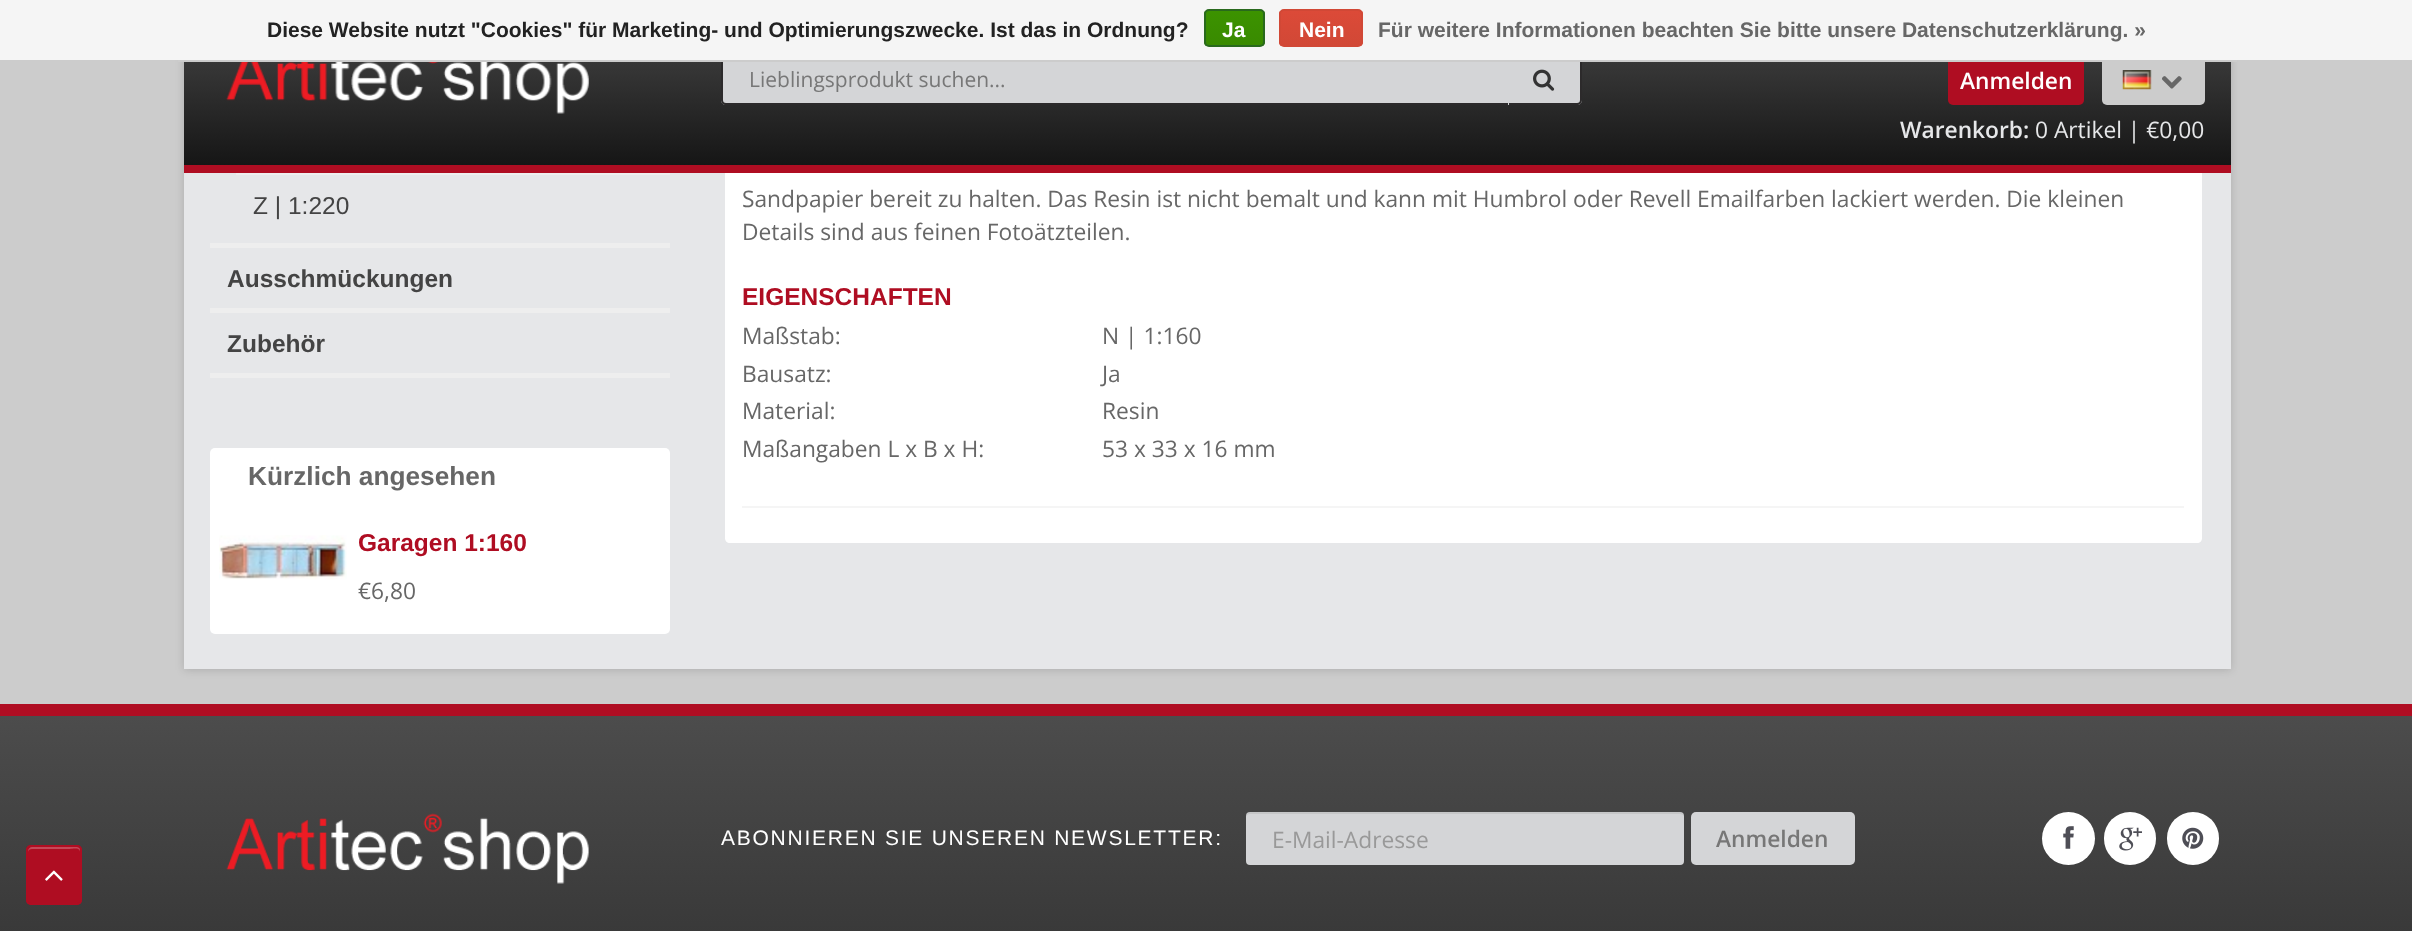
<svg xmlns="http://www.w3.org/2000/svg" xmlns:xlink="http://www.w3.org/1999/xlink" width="2412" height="931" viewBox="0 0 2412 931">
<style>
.cls-1{font:bold 21px Liberation Sans;fill:#222222}
.cls-2{font:bold 21px Liberation Sans;fill:#ffffff}
.cls-3{font:bold 21px Liberation Sans;fill:#676767}
.cls-4{font:21px Open Sans;fill:#777777}
.cls-5{font:600 22.75px Open Sans;fill:#ffffff}
.cls-6{font:600 22.75px Open Sans;fill:#e6e7e9}
.cls-7{font:22.75px Open Sans;fill:#e6e7e9}
.cls-8{font:24.5px Liberation Sans;fill:#444444}
.cls-9{font:bold 24.5px Liberation Sans;fill:#444444}
.cls-10{font:bold 26.25px Liberation Sans;fill:#676767}
.cls-11{font:bold 24.5px Liberation Sans;fill:#af0d22}
.cls-12{font:22.75px Open Sans;fill:#676767}
.cls-13{font:21px Liberation Sans;letter-spacing:1.75px;fill:#ffffff}
.cls-14{font:22.75px Open Sans;fill:#999999}
.cls-15{font:600 22.75px Open Sans;fill:#777777}
</style>
<defs>
<linearGradient id="g1" gradientUnits="userSpaceOnUse" x1="1208" y1="0" x2="1208" y2="173"><stop offset="0" stop-color="#4c4c4c"/><stop offset="1" stop-color="#131313"/></linearGradient>
<clipPath id="clip1"><rect x="1204" y="9" width="61" height="38" rx="5"/></clipPath>
<linearGradient id="g2" gradientUnits="userSpaceOnUse" x1="1235" y1="10" x2="1235" y2="46"><stop offset="0" stop-color="#3c9300"/><stop offset="1" stop-color="#398a00"/></linearGradient>
<clipPath id="clip2"><rect x="1279" y="9" width="84" height="38" rx="5"/></clipPath>
<linearGradient id="g3" gradientUnits="userSpaceOnUse" x1="1321" y1="10" x2="1321" y2="46"><stop offset="0" stop-color="#dc4a38"/><stop offset="1" stop-color="#d14836"/></linearGradient>
<linearGradient id="g4" gradientUnits="userSpaceOnUse" x1="1207" y1="716" x2="1207" y2="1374"><stop offset="0" stop-color="#4c4c4c"/><stop offset="1" stop-color="#131313"/></linearGradient>
</defs>
<rect width="100%" height="100%" fill="#cccccc"/>
<rect fill="#000000" fill-opacity="0.15" filter="blur(4.5px)" x="184" y="-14" width="2047" height="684"/>
<rect fill="#e6e7e9" x="184" y="173" width="2047" height="496"/>
<path fill="#ffffff" d="M725-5H2202V538C2202 541 2200 543 2197 543H730C727 543 725 541 725 538Z"/>
<rect fill="url(#g1)" x="184" y="62" width="2047" height="103"/>
<path fill="#d4d5d7" d="M1507 53H1577C1580 53 1582 55 1582 58V100C1582 103 1580 105 1577 105H1507Z"/>
<path fill="#2c2a2b" fill-rule="evenodd" d="M1507 52H1577C1580 52 1582 55 1582 58V100C1582 103 1580 105 1577 105H1507ZM1507 54H1577C1579 54 1580 56 1580 58V100C1580 102 1579 103 1577 103H1507Z"/>
<path fill="#d4d5d7" d="M726 53H1509V105H726C723 105 721 103 721 100V58C721 55 723 53 726 53Z"/>
<path fill="#2c2a2b" fill-rule="evenodd" d="M726 52H1508V105H726C723 105 721 103 721 100V58C721 55 723 52 726 52ZM726 54H1508V103H726C724 103 723 102 723 100V58C723 56 724 54 726 54Z"/>
<rect fill="#af0d22" x="1948" y="53" width="136" height="52" rx="5"/>
<rect fill="#cccccc" x="2102" y="53" width="103" height="52" rx="5"/>
<rect fill="#f5f5f5" x="0" y="0" width="2412" height="60"/>
<rect fill="#cccccc" x="178" y="60" width="2059" height="2"/>
<g clip-path="url(#clip1)">
<rect fill="url(#g2)" x="1204" y="11" width="61" height="35"/>
</g>
<rect fill="none" stroke="#29691d" stroke-width="2" x="1205" y="10" width="59" height="36" rx="4"/>
<g clip-path="url(#clip2)">
<rect fill="url(#g3)" x="1279" y="11" width="84" height="35"/>
</g>
<rect fill="none" stroke="#d14836" stroke-width="2" x="1280" y="10" width="82" height="36" rx="4"/>
<rect fill="#af0d22" x="184" y="165" width="2047" height="8"/>
<image xlink:href="image0.png" x="226" y="62" width="363" height="52"/>
<image xlink:href="image1.png" x="1533" y="69" width="22" height="22"/>
<image xlink:href="image2.png" x="2122" y="70" width="30" height="20"/>
<image xlink:href="image3.png" x="2162" y="76" width="20" height="13"/>
<rect fill="#eeeeee" x="210" y="243" width="460" height="5"/>
<rect fill="#eeeeee" x="236" y="173" width="434" height="2"/>
<rect fill="#eeeeee" x="210" y="308" width="460" height="5"/>
<rect fill="#eeeeee" x="210" y="373" width="460" height="5"/>
<rect fill="#ffffff" x="210" y="448" width="460" height="186" rx="5"/>
<image xlink:href="image4.png" x="219" y="535" width="128" height="45"/>
<rect fill="#f5f5f5" x="742" y="506" width="1442" height="2"/>
<rect fill="url(#g4)" x="0" y="716" width="2412" height="215"/>
<rect fill="#af0d22" x="0" y="704" width="2412" height="12"/>
<image xlink:href="image5.png" x="226" y="813" width="363" height="71"/>
<rect fill="#d4d5d7" x="1246" y="812" width="438" height="53" rx="4"/>
<path fill="#000000" fill-opacity="0.07" d="M1250 814H1680C1682 814 1684 815 1684 817C1684 814 1683 812 1680 812H1250C1247 812 1246 814 1246 817C1246 815 1248 814 1250 814Z"/>
<rect fill="#d4d5d7" x="1691" y="812" width="164" height="53" rx="5"/>
<circle fill="#ffffff" cx="2068.5" cy="838.5" r="26.5"/>
<image xlink:href="image6.png" x="2063" y="826" width="11" height="23"/>
<rect fill="#ffffff" x="2104" y="812" width="52" height="53" rx="26"/>
<image xlink:href="image7.png" x="2119" y="827" width="23" height="24"/>
<rect fill="#ffffff" x="2167" y="812" width="52" height="53" rx="26"/>
<image xlink:href="image8.png" x="2182" y="827" width="22" height="22"/>
<rect fill="#af0d22" x="26" y="845" width="56" height="60" rx="5"/>
<path fill="#c34a59" d="M32 849H70C72 849 80 847 80 852V902C81 901 81 900 81 899V851C81 849 79 847 77 847H32C30 847 28 849 28 851V852C28 850 30 849 32 849Z"/>
<rect fill="none" stroke="#af0d22" stroke-width="2" x="27" y="846" width="54" height="58" rx="4"/>
<image xlink:href="image9.png" x="45" y="870" width="18" height="11"/>
<text class="cls-1" x="267" y="37">Diese Website nutzt "Cookies" für Marketing- und Optimierungszwecke. Ist das in Ordnung?</text>
<text class="cls-2" x="1222" y="37">Ja</text>
<text class="cls-2" x="1299" y="37">Nein</text>
<text class="cls-3" x="1378" y="37">Für weitere Informationen beachten Sie bitte unsere Datenschutzerklärung. »</text>
<text class="cls-4" x="749" y="87">Lieblingsprodukt suchen...</text>
<text class="cls-5" x="1960" y="89">Anmelden</text>
<text class="cls-6" x="1900" y="138">Warenkorb:</text>
<text class="cls-7" x="2035" y="138">0 Artikel | €0,00</text>
<text class="cls-8" x="253" y="214">Z | 1:220</text>
<text class="cls-9" x="227" y="287">Ausschmückungen</text>
<text class="cls-9" x="227" y="352">Zubehör</text>
<text class="cls-10" x="248" y="485">Kürzlich angesehen</text>
<text class="cls-11" x="358" y="551">Garagen 1:160</text>
<text class="cls-12" x="358" y="599">€6,80</text>
<text class="cls-12"><tspan x="742" y="207">Sandpapier bereit zu halten. Das Resin ist nicht bemalt und kann mit Humbrol oder Revell Emailfarben lackiert werden. Die kleinen</tspan><tspan x="742" y="240">Details sind aus feinen Fotoätzteilen.</tspan></text>
<text class="cls-11" x="742" y="305">EIGENSCHAFTEN</text>
<text class="cls-12" x="742" y="344">Maßstab:</text>
<text class="cls-12" x="1102" y="344">N | 1:160</text>
<text class="cls-12" x="742" y="382">Bausatz:</text>
<text class="cls-12" x="1102" y="382">Ja</text>
<text class="cls-12" x="742" y="419">Material:</text>
<text class="cls-12" x="1102" y="419">Resin</text>
<text class="cls-12" x="742" y="457">Maßangaben L x B x H:</text>
<text class="cls-12" x="1102" y="457">53 x 33 x 16 mm</text>
<text class="cls-13" x="721" y="845">ABONNIEREN SIE UNSEREN NEWSLETTER:</text>
<text class="cls-14" x="1272" y="848">E-Mail-Adresse</text>
<text class="cls-15" x="1716" y="847">Anmelden</text>
</svg>
